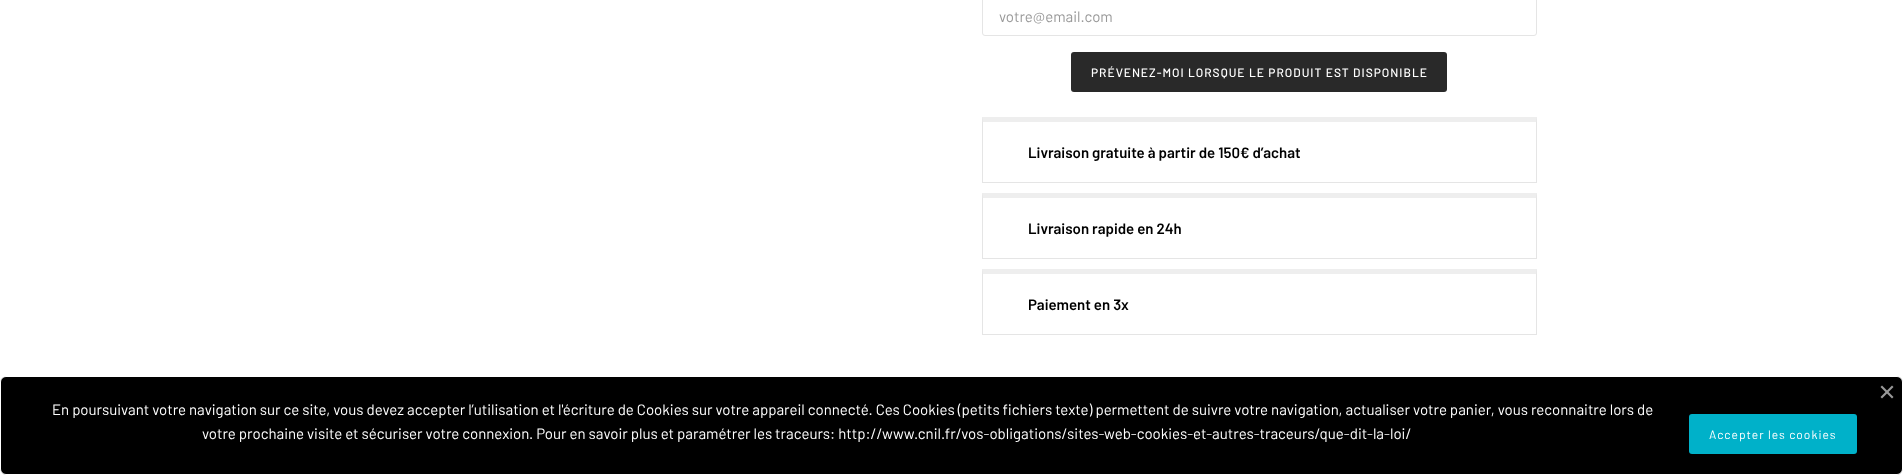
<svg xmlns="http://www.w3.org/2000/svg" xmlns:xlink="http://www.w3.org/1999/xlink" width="1903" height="475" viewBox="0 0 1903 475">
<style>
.cls-1{font:15px Barlow;fill:#999999}
.cls-2{font:500 12px Barlow;letter-spacing:1px;fill:#ffffff}
.cls-3{font:600 15px Barlow;fill:#000000}
.cls-4{font:15px Barlow;fill:#ffffff}
.cls-5{font:12px Barlow;letter-spacing:1px;fill:#ffffff}
</style>
<rect width="100%" height="100%" fill="#ffffff"/>
<rect fill="none" stroke="#e5e5e5" x="982.5" y="-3.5" width="554" height="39" rx="2.5"/>
<rect fill="#292929" x="1071" y="52" width="376" height="40" rx="3"/>
<path fill="#eeeeee" d="M982 117H1537L1536 122H983Z"/>
<path fill="#000000" fill-opacity="0.1" d="M1537 117V183L1536 182V122Z"/>
<path fill="#000000" fill-opacity="0.1" d="M1537 183H982L983 182H1536Z"/>
<path fill="#000000" fill-opacity="0.1" d="M982 183V117L983 122V182Z"/>
<path fill="#eeeeee" d="M982 193H1537L1536 198H983Z"/>
<path fill="#000000" fill-opacity="0.1" d="M1537 193V259L1536 258V198Z"/>
<path fill="#000000" fill-opacity="0.1" d="M1537 259H982L983 258H1536Z"/>
<path fill="#000000" fill-opacity="0.1" d="M982 259V193L983 198V258Z"/>
<path fill="#eeeeee" d="M982 269H1537L1536 274H983Z"/>
<path fill="#000000" fill-opacity="0.1" d="M1537 269V335L1536 334V274Z"/>
<path fill="#000000" fill-opacity="0.1" d="M1537 335H982L983 334H1536Z"/>
<path fill="#000000" fill-opacity="0.1" d="M982 335V269L983 274V334Z"/>
<rect fill="#000000" stroke="#ffffff" x="0.5" y="376.5" width="1902" height="98" rx="5.5"/>
<path fill="#999999" d="M1880.5 397L1892 385.5L1893.5 387L1882 398.5Z"/>
<path fill="#999999" d="M1882 385.5L1893.5 397L1892 398.5L1880.5 387Z"/>
<rect fill="#00b1c9" x="1689" y="414" width="168" height="40" rx="3"/>
<text class="cls-1" x="999" y="22">votre@email.com</text>
<text class="cls-2" x="1091" y="77">PRÉVENEZ-MOI LORSQUE LE PRODUIT EST DISPONIBLE</text>
<text class="cls-3" x="1028" y="158">Livraison gratuite à partir de 150€ d’achat</text>
<text class="cls-3" x="1028" y="234">Livraison rapide en 24h</text>
<text class="cls-3" x="1028" y="310">Paiement en 3x</text>
<text class="cls-4" x="52" y="415">En poursuivant votre navigation sur ce site, vous devez accepter l’utilisation et l'écriture de Cookies sur votre appareil connecté. Ces Cookies (petits fichiers texte) permettent de suivre votre navigation, actualiser votre panier, vous reconnaitre lors de</text>
<text class="cls-4" x="202" y="439">votre prochaine visite et sécuriser votre connexion. Pour en savoir plus et paramétrer les traceurs: http://www.cnil.fr/vos-obligations/sites-web-cookies-et-autres-traceurs/que-dit-la-loi/</text>
<text class="cls-5" x="1709" y="439">Accepter les cookies</text>
</svg>
